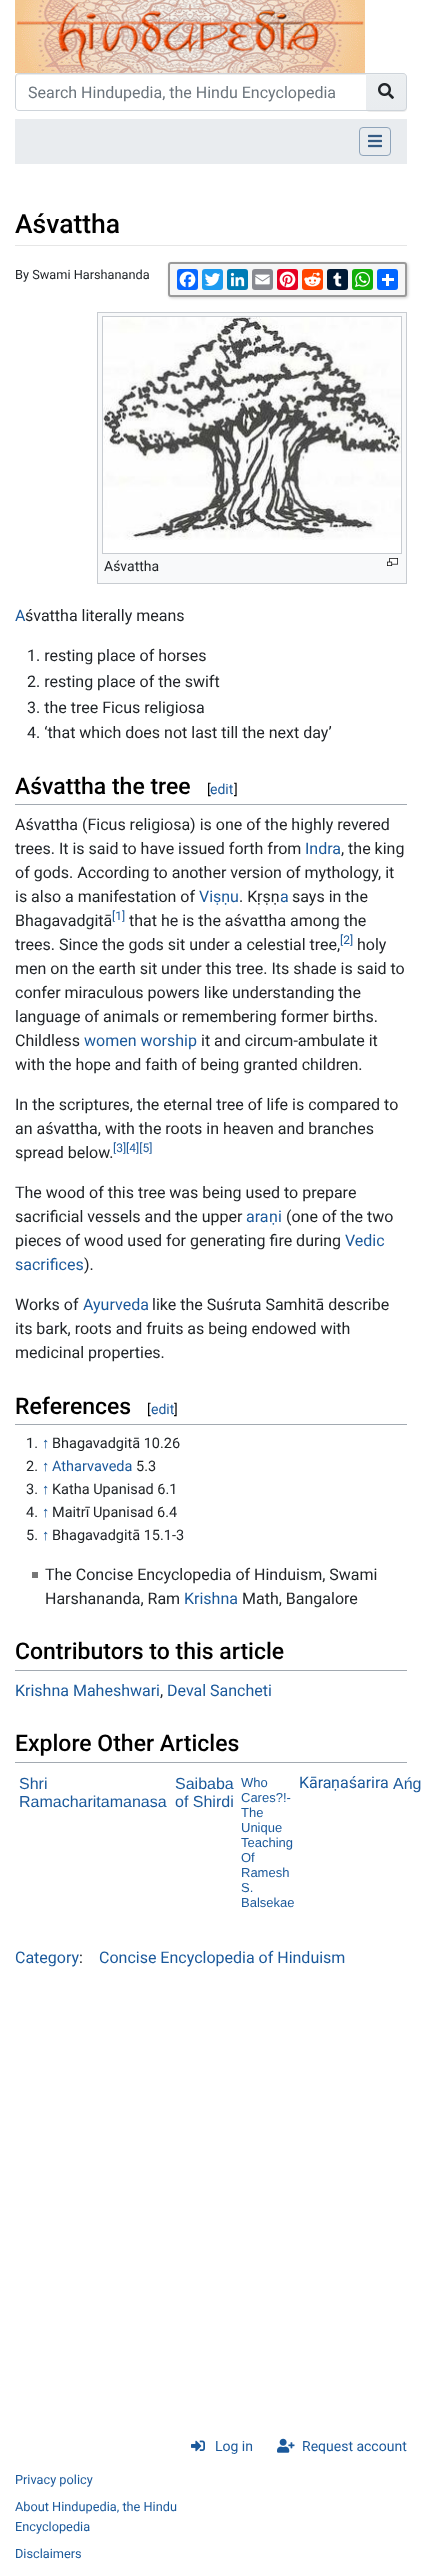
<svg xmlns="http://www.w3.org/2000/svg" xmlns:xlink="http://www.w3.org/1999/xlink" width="422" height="2575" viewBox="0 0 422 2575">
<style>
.cls-1{font:16px Roboto;fill:#6c757d}
.cls-2{font:500 26.5px Roboto;fill:#000000}
.cls-3{font:12.75px Roboto;fill:#212529}
.cls-4{font:14px Roboto;fill:#212529}
.cls-5{font:16px Roboto;fill:#1b599b}
.cls-6{font:16px Roboto;fill:#212529}
.cls-7{font:500 23px Roboto;fill:#000000}
.cls-8{font:14px Roboto;fill:#000000}
.cls-9{font:14px Roboto;fill:#1b599b}
.cls-10{font:16px 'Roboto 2';fill:#1b599b}
.cls-11{font:16px 'Roboto 2';fill:#212529}
.cls-12{font:12px Roboto;fill:#1b599b}
.cls-13{font:14.5px Roboto;fill:#212529}
.cls-14{font:14.5px Liberation Sans;fill:#1b599b}
.cls-15{font:14.5px Roboto;fill:#1b599b}
.cls-16{font:16px Liberation Sans;fill:#1b599b}
.cls-17{font:13px Liberation Sans;fill:#1b599b}
.cls-18{font:12.75px Roboto;fill:#1b599b}
</style>
<defs>
<linearGradient id="g1" gradientUnits="userSpaceOnUse" x1="386" y1="74" x2="386" y2="110"><stop offset="0" stop-color="#eceff1"/><stop offset="1" stop-color="#e9ecef"/></linearGradient>
</defs>
<rect width="100%" height="100%" fill="#ffffff"/>
<image xlink:href="image0.png" x="15" y="0" width="350" height="73"/>
<path fill="#ececec" d="M19 75H366V74H19C17 74 16 75 16 77V78C16 76 17 75 19 75Z"/>
<path fill="none" stroke="#ced4da" d="M19 73.5H366.5V110.5H19C17 110.5 15.5 109 15.5 107V77C15.5 75 17 73.5 19 73.5Z"/>
<rect fill="#000000" fill-opacity="0.07" filter="blur(0.5px)" x="366" y="74" width="41" height="38" rx="4"/>
<path fill="url(#g1)" d="M366 74H403C404.5 74 406 75.5 406 77V107C406 108.5 404.5 110 403 110H366Z"/>
<path fill="#ffffff" fill-opacity="0.15" d="M366 75H403C405 75 406 76 406 78V77C406 75 405 74 403 74H366Z"/>
<path fill="#ced4da" fill-rule="evenodd" d="M366 73H403C405 73 407 75 407 77V107C407 109 405 111 403 111H366ZM366 74H403C405 74 406 75 406 77V107C406 109 405 110 403 110H366Z"/>
<image xlink:href="image1.png" x="378" y="83" width="16" height="16"/>
<rect fill="#e9ecef" x="15" y="119" width="392" height="45"/>
<rect fill="none" stroke="#8fa4ba" x="359.5" y="127.5" width="31" height="28" rx="3.5"/>
<image xlink:href="image2.png" x="368" y="134" width="14" height="14"/>
<rect fill="#e6e6e6" x="15" y="245" width="392" height="1"/>
<rect fill="#000000" fill-opacity="0.2" filter="blur(1.5px)" x="169" y="263" width="239" height="35" rx="3"/>
<rect fill="#f6f6f6" stroke="#999999" stroke-width="2" x="169" y="263" width="237" height="33" rx="2"/>
<rect fill="#0866ff" x="177" y="269" width="21" height="21" rx="3"/>
<image xlink:href="image3.png" x="179" y="271" width="17" height="17"/>
<rect fill="#1d9bf0" x="202" y="269" width="21" height="21" rx="3"/>
<image xlink:href="image4.png" x="204" y="273" width="17" height="13"/>
<rect fill="#007bb5" x="227" y="269" width="21" height="21" rx="3"/>
<image xlink:href="image5.png" x="230" y="272" width="15" height="15"/>
<rect fill="#888990" x="252" y="269" width="21" height="21" rx="3"/>
<image xlink:href="image6.png" x="255" y="274" width="15" height="11"/>
<rect fill="#e60023" x="277" y="269" width="21" height="21" rx="3"/>
<image xlink:href="image7.png" x="279" y="271" width="17" height="17"/>
<rect fill="#ff4500" x="302" y="269" width="21" height="21" rx="3"/>
<image xlink:href="image8.png" x="304" y="272" width="17" height="15"/>
<rect fill="#001935" x="327" y="269" width="21" height="21" rx="3"/>
<image xlink:href="image9.png" x="333" y="272" width="9" height="15"/>
<rect fill="#12af0a" x="352" y="269" width="21" height="21" rx="3"/>
<image xlink:href="image10.png" x="355" y="271" width="15" height="16"/>
<rect fill="#0166ff" x="377" y="269" width="21" height="21" rx="3"/>
<rect fill="#ffffff" x="386" y="274" width="3" height="12"/>
<rect fill="#ffffff" x="382" y="278" width="12" height="3"/>
<rect fill="#f8f9fa" stroke="#c8ccd1" x="97.5" y="312.5" width="309" height="271"/>
<rect fill="#ffffff" x="103" y="540" width="298" height="13"/>
<rect fill="none" stroke="#c8ccd1" x="102.5" y="316.5" width="299" height="237"/>
<image xlink:href="image11.png" x="103" y="317" width="298" height="223"/>
<image xlink:href="image12.png" x="387" y="558" width="11" height="8"/>
<rect fill="#a2a9b1" x="15" y="804" width="392" height="1"/>
<rect fill="#a2a9b1" x="15" y="1424" width="392" height="1"/>
<rect fill="#777777" x="32" y="1572" width="6" height="6"/>
<rect fill="#a2a9b1" x="15" y="1670" width="392" height="1"/>
<rect fill="#a2a9b1" x="15" y="1762" width="392" height="1"/>
<image xlink:href="image13.png" x="191" y="2440" width="14" height="12"/>
<image xlink:href="image14.png" x="277" y="2438" width="18" height="15"/>
<text class="cls-1" x="28" y="98">Search Hindupedia, the Hindu Encyclopedia</text>
<text class="cls-2" x="15" y="233">Aśvattha</text>
<text class="cls-3" x="15" y="279">By Swami Harshananda</text>
<text class="cls-4" x="104" y="571">Aśvattha</text>
<text class="cls-5" x="15" y="621">A</text>
<text class="cls-6" x="25" y="621">śvattha literally means</text>
<text class="cls-6"><tspan x="27" y="661">1. resting place of horses</tspan><tspan x="27" y="687">2. resting place of the swift</tspan><tspan x="27" y="713">3. the tree Ficus religiosa</tspan><tspan x="27" y="738">4. ‘that which does not last till the next day’</tspan></text>
<text class="cls-7" x="15" y="794">Aśvattha the tree</text>
<text class="cls-8" x="207" y="794">[</text>
<text class="cls-9" x="210" y="794">edit</text>
<text class="cls-8" x="234" y="794">]</text>
<text class="cls-6"><tspan x="15" y="830">Aśvattha (Ficus religiosa) is one of the highly revered</tspan><tspan x="15" y="854">trees. It is said to have issued forth from</tspan></text>
<text class="cls-5" x="305" y="854">Indra</text>
<text class="cls-6" x="341" y="854">, the king</text>
<text class="cls-6"><tspan x="15" y="878">of gods. According to another version of mythology, it</tspan><tspan x="15" y="902">is also a manifestation of</tspan></text>
<text class="cls-5" x="199" y="902">Vi</text>
<text class="cls-10" x="213" y="902">ṣṇ</text>
<text class="cls-5" x="230" y="902">u</text>
<text class="cls-6" x="239" y="902">. K</text>
<text class="cls-11" x="257" y="902">ṛṣṇ</text>
<text class="cls-5" x="280" y="902">a</text>
<text class="cls-6" x="292" y="902">says in the</text>
<text class="cls-6" x="15" y="926">Bhagavadgitā</text>
<text class="cls-12" x="112" y="920">[1]</text>
<text class="cls-6" x="129" y="926">that he is the aśvattha among the</text>
<text class="cls-6" x="15" y="950">trees. Since the gods sit under a celestial tree,</text>
<text class="cls-12" x="340" y="944">[2]</text>
<text class="cls-6" x="357" y="950">holy</text>
<text class="cls-6"><tspan x="15" y="974">men on the earth sit under this tree. Its shade is said to</tspan><tspan x="15" y="998">confer miraculous powers like understanding the</tspan><tspan x="15" y="1022">language of animals or remembering former births.</tspan><tspan x="15" y="1046">Childless</tspan></text>
<text class="cls-5" x="84" y="1046">women worship</text>
<text class="cls-6" x="201" y="1046">it and circum-ambulate it</text>
<text class="cls-6" x="15" y="1070">with the hope and faith of being granted children.</text>
<text class="cls-6"><tspan x="15" y="1110">In the scriptures, the eternal tree of life is compared to</tspan><tspan x="15" y="1134">an aśvattha, with the roots in heaven and branches</tspan><tspan x="15" y="1158">spread below.</tspan></text>
<text class="cls-12" x="113" y="1152">[3][4][5]</text>
<text class="cls-6"><tspan x="15" y="1198">The wood of this tree was being used to prepare</tspan><tspan x="15" y="1222">sacrificial vessels and the upper</tspan></text>
<text class="cls-5" x="246" y="1222">ara</text>
<text class="cls-10" x="269" y="1222">ṇ</text>
<text class="cls-5" x="278" y="1222">i</text>
<text class="cls-6" x="286" y="1222">(one of the two</text>
<text class="cls-6" x="15" y="1246">pieces of wood used for generating fire during</text>
<text class="cls-5" x="345" y="1246">Vedic</text>
<text class="cls-5" x="15" y="1270">sacrifices</text>
<text class="cls-6" x="84" y="1270">).</text>
<text class="cls-6" x="15" y="1310">Works of</text>
<text class="cls-5" x="83" y="1310">Ayurveda</text>
<text class="cls-6" x="152" y="1310">like the Suśruta Samhitā describe</text>
<text class="cls-6"><tspan x="15" y="1334">its bark, roots and fruits as being endowed with</tspan><tspan x="15" y="1358">medicinal properties.</tspan></text>
<text class="cls-7" x="15" y="1414">References</text>
<text class="cls-8" x="147" y="1414">[</text>
<text class="cls-9" x="151" y="1414">edit</text>
<text class="cls-8" x="174" y="1414">]</text>
<text class="cls-13" x="26" y="1448">1.</text>
<text class="cls-14" x="42" y="1448">↑</text>
<text class="cls-13" x="52" y="1448">Bhagavadgitā 10.26</text>
<text class="cls-13" x="26" y="1471">2.</text>
<text class="cls-14" x="42" y="1471">↑</text>
<text class="cls-15" x="52" y="1471">Atharvaveda</text>
<text class="cls-13" x="136" y="1471">5.3</text>
<text class="cls-13" x="26" y="1494">3.</text>
<text class="cls-14" x="42" y="1494">↑</text>
<text class="cls-13" x="52" y="1494">Katha Upanisad 6.1</text>
<text class="cls-13" x="26" y="1517">4.</text>
<text class="cls-14" x="42" y="1517">↑</text>
<text class="cls-13" x="52" y="1517">Maitrī Upanisad 6.4</text>
<text class="cls-13" x="26" y="1540">5.</text>
<text class="cls-14" x="42" y="1540">↑</text>
<text class="cls-13" x="52" y="1540">Bhagavadgitā 15.1-3</text>
<text class="cls-6"><tspan x="45" y="1580">The Concise Encyclopedia of Hinduism, Swami</tspan><tspan x="45" y="1604">Harshananda, Ram</tspan></text>
<text class="cls-5" x="184" y="1604">Krishna</text>
<text class="cls-6" x="242" y="1604">Math, Bangalore</text>
<text class="cls-7" x="15" y="1659">Contributors to this article</text>
<text class="cls-5" x="15" y="1696">Krishna Maheshwari</text>
<text class="cls-6" x="160" y="1696">,</text>
<text class="cls-5" x="167" y="1696">Deval Sancheti</text>
<text class="cls-7" x="15" y="1751">Explore Other Articles</text>
<text class="cls-16"><tspan x="19" y="1789">Shri</tspan><tspan x="19" y="1807">Ramacharitamanasa</tspan></text>
<text class="cls-16"><tspan x="175" y="1789">Saibaba</tspan><tspan x="175" y="1807">of Shirdi</tspan></text>
<text class="cls-17"><tspan x="241" y="1787">Who</tspan><tspan x="241" y="1802">Cares?!-</tspan><tspan x="241" y="1817">The</tspan><tspan x="241" y="1832">Unique</tspan><tspan x="241" y="1847">Teaching</tspan><tspan x="241" y="1862">Of</tspan><tspan x="241" y="1877">Ramesh</tspan><tspan x="241" y="1892">S.</tspan><tspan x="241" y="1907">Balsekae</tspan></text>
<text class="cls-5" x="299" y="1788">Kāra</text>
<text class="cls-10" x="331" y="1788">ṇ</text>
<text class="cls-5" x="340" y="1788">aśarira</text>
<text class="cls-16" x="393" y="1789">Ańg</text>
<text class="cls-5" x="15" y="1963">Category</text>
<text class="cls-6" x="79" y="1963">:</text>
<text class="cls-5" x="99" y="1963">Concise Encyclopedia of Hinduism</text>
<text class="cls-9" x="215" y="2451">Log in</text>
<text class="cls-9" x="302" y="2451">Request account</text>
<text class="cls-18" x="15" y="2484">Privacy policy</text>
<text class="cls-18"><tspan x="15" y="2511">About Hindupedia, the Hindu</tspan><tspan x="15" y="2531">Encyclopedia</tspan></text>
<text class="cls-18" x="15" y="2558">Disclaimers</text>
</svg>
